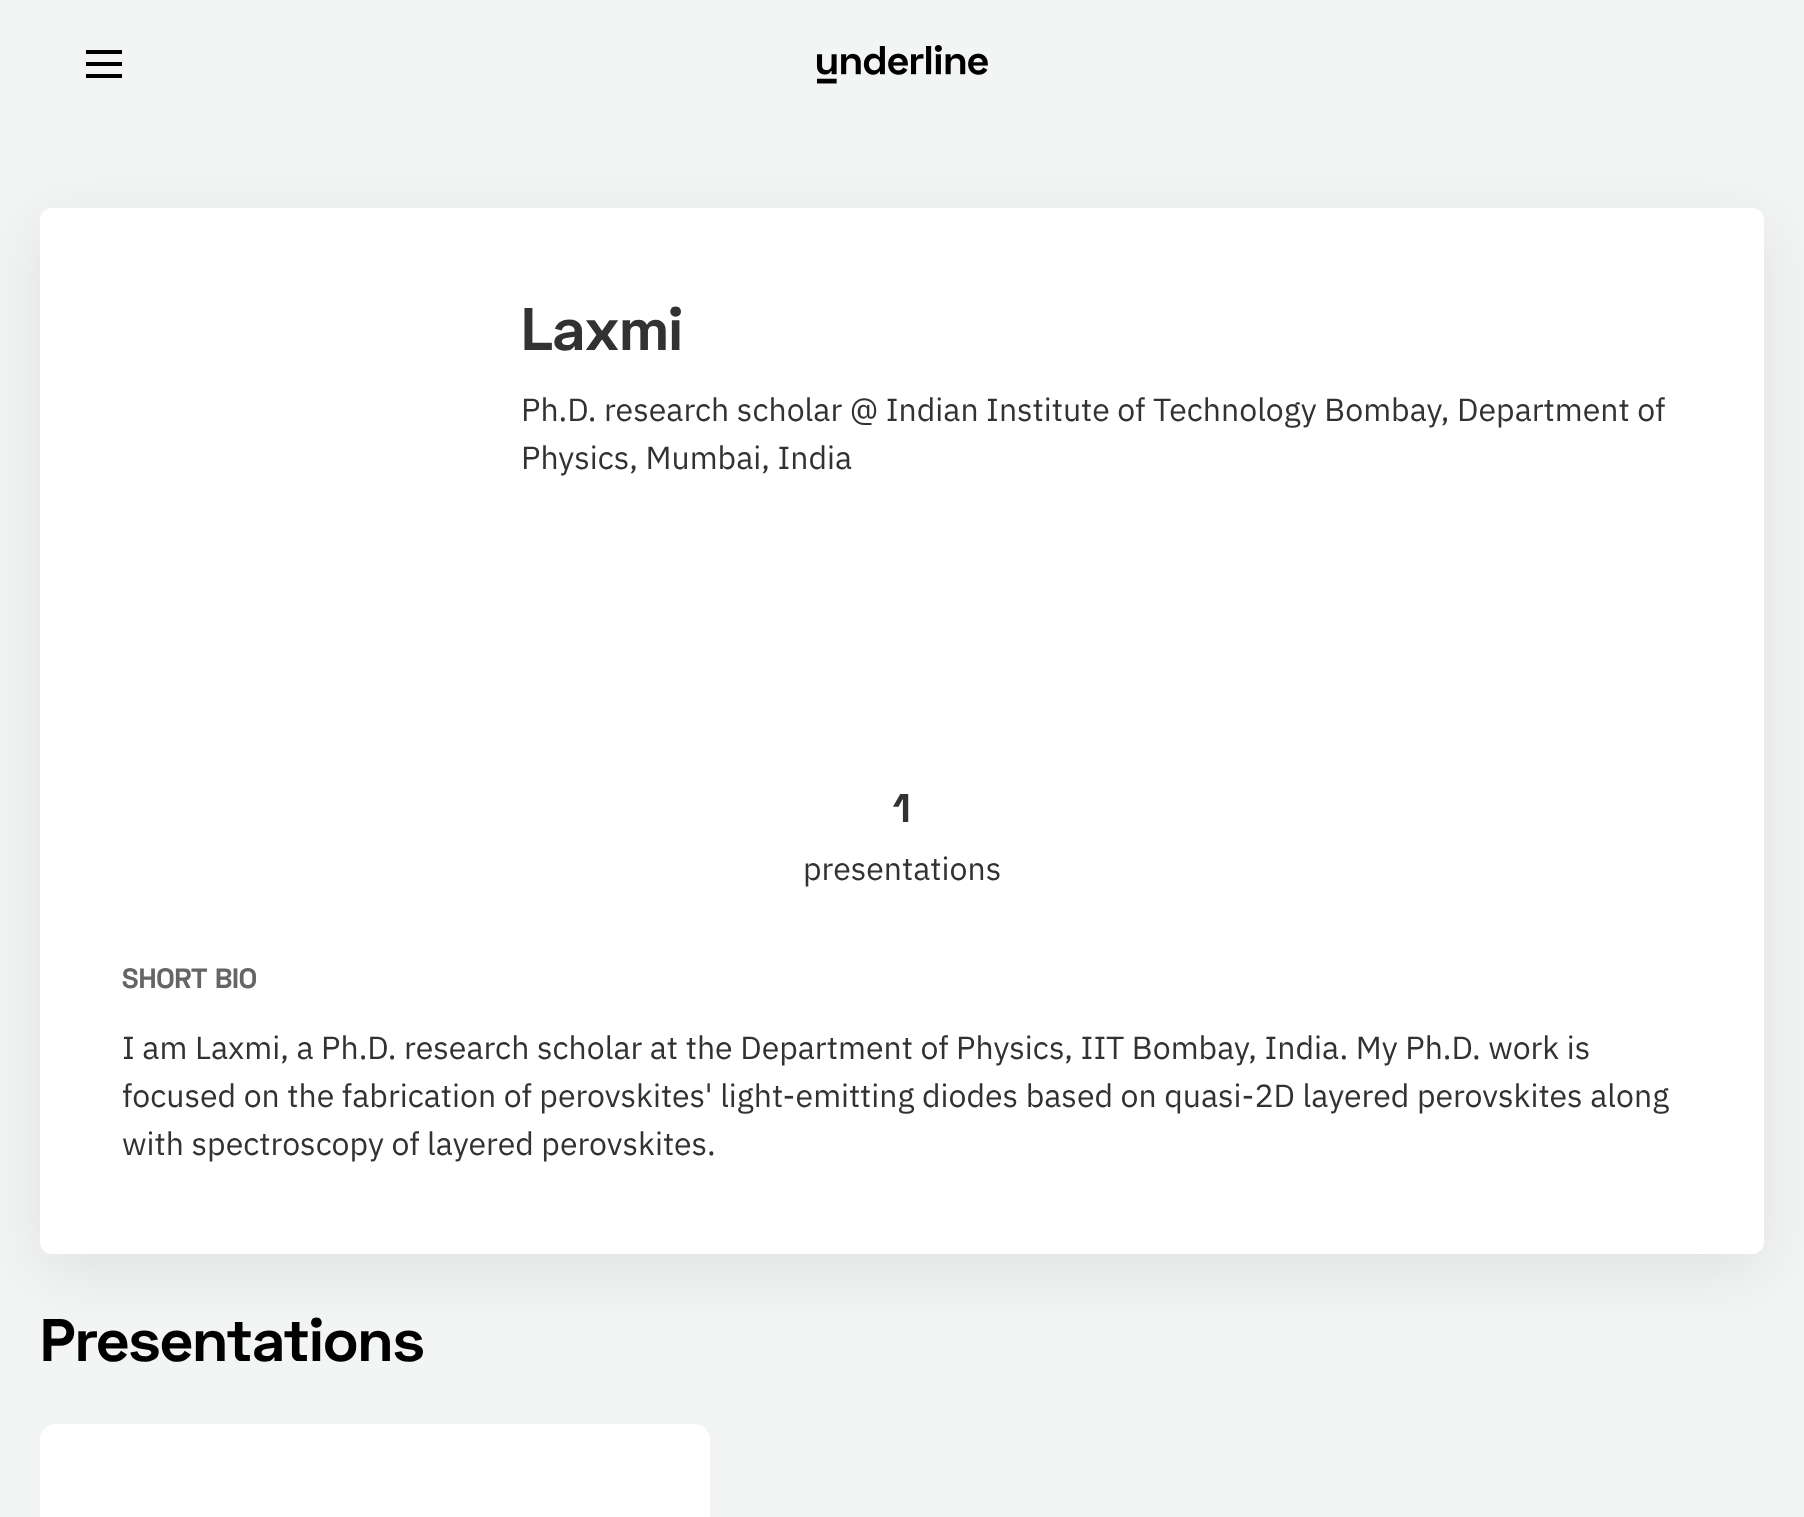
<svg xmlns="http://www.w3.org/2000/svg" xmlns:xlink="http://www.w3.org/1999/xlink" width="1804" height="1517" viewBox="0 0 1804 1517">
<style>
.cls-1{font:bold 60px Space Grotesk;fill:#313333}
.cls-2{font:32px IBM Plex Sans;fill:#313333}
.cls-3{font:bold 40px Space Grotesk;fill:#313333}
.cls-4{font:bold 28px Space Grotesk;fill:#646666}
.cls-5{font:bold 60px Space Grotesk;fill:#000000}
</style>
<rect width="100%" height="100%" fill="#f3f5f5"/>
<path fill="#000000" fill-rule="evenodd" d="M122 54H86V50H122ZM122 66H86V62H122ZM86 78H122V74H86Z"/>
<image xlink:href="image0.png" x="816" y="45" width="172" height="39"/>
<rect fill="#000000" fill-opacity="0.08" filter="blur(32px)" x="40" y="224" width="1724" height="1046" rx="12"/>
<rect fill="#ffffff" stroke="#ffffff" stroke-width="2" x="41" y="209" width="1722" height="1044" rx="11"/>
<rect fill="#ffffff" x="40" y="1424" width="670" height="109" rx="16"/>
<text class="cls-1" x="521" y="350">Laxmi</text>
<text class="cls-2"><tspan x="521" y="421">Ph.D. research scholar @ Indian Institute of Technology Bombay, Department of</tspan><tspan x="521" y="469">Physics, Mumbai, India</tspan></text>
<text class="cls-3" x="893" y="822">1</text>
<text class="cls-2" x="803" y="880">presentations</text>
<text class="cls-4" x="122" y="988">SHORT BIO</text>
<text class="cls-2"><tspan x="122" y="1059">I am Laxmi, a Ph.D. research scholar at the Department of Physics, IIT Bombay, India. My Ph.D. work is</tspan><tspan x="122" y="1107">focused on the fabrication of perovskites' light-emitting diodes based on quasi-2D layered perovskites along</tspan><tspan x="122" y="1155">with spectroscopy of layered perovskites.</tspan></text>
<text class="cls-5" x="40" y="1361">Presentations</text>
</svg>
